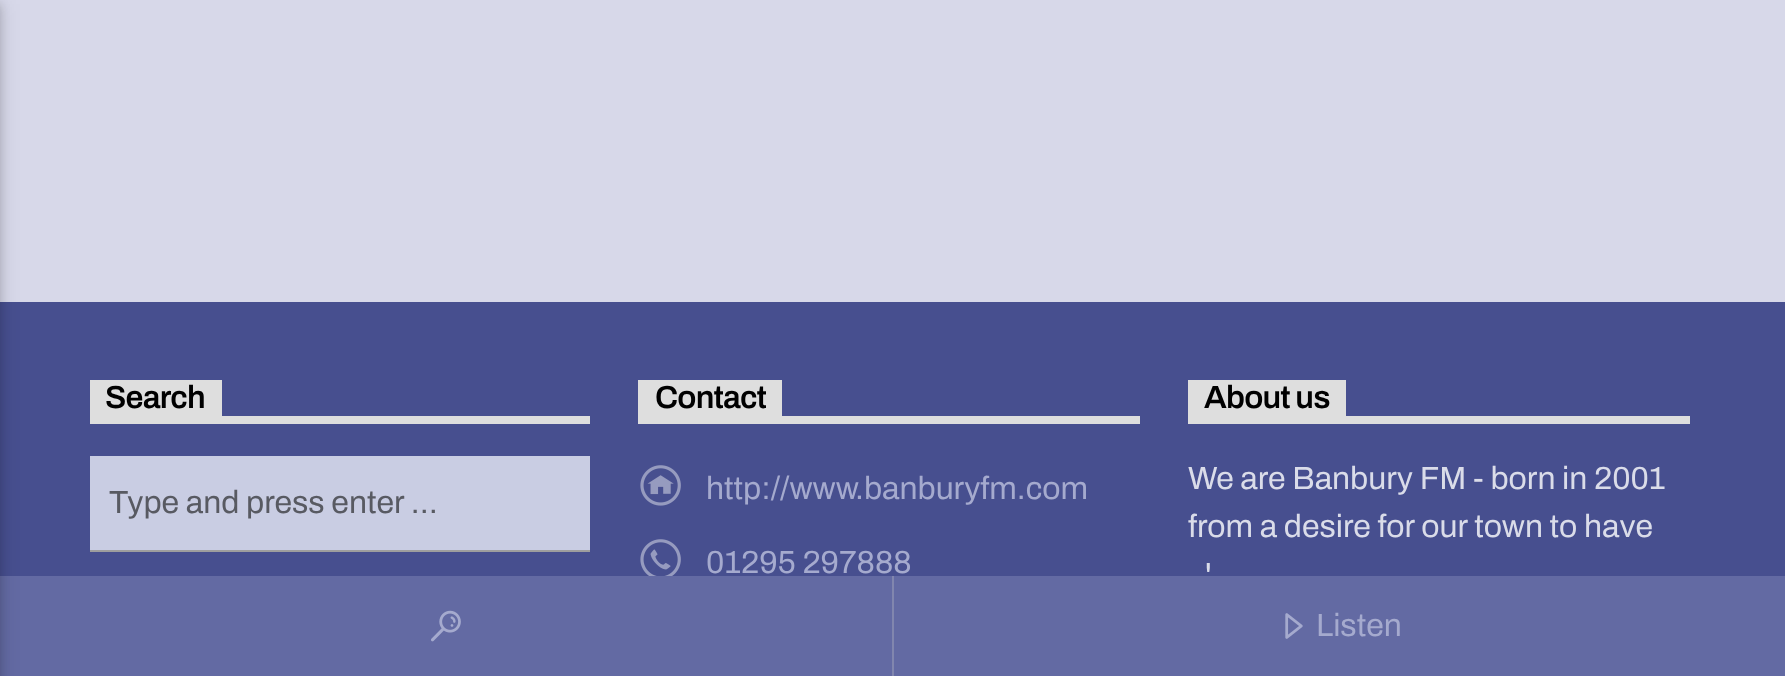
<svg xmlns="http://www.w3.org/2000/svg" xmlns:xlink="http://www.w3.org/1999/xlink" width="1785" height="676" viewBox="0 0 1785 676">
<style>
.cls-1{font:600 32px Archivo;letter-spacing:-0.75px;fill:#000000}
.cls-2{font:32px Archivo;fill:#585a62}
.cls-3{font:32px Archivo;fill:#a5aace}
.cls-4{font:32px Archivo;fill:#dadce9}
</style>
<rect width="100%" height="100%" fill="#d7d8e9"/>
<rect fill="#474f8f" x="0" y="302" width="1785" height="274"/>
<rect fill="#636aa3" x="0" y="576" width="1785" height="100"/>
<rect fill="#000000" fill-opacity="0.12" filter="blur(10px)" x="-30" y="4" width="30" height="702"/>
<rect fill="#000000" fill-opacity="0.16" filter="blur(5px)" x="-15" y="4" width="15" height="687"/>
<rect fill="#dedede" x="90" y="416" width="500" height="8"/>
<rect fill="#dedede" x="90" y="380" width="132" height="36"/>
<rect fill="#c9cde3" x="90" y="456" width="500" height="94"/>
<rect fill="#9e9e9e" x="90" y="550" width="500" height="2"/>
<rect fill="#dedede" x="638" y="416" width="502" height="8"/>
<rect fill="#dedede" x="638" y="380" width="144" height="36"/>
<image xlink:href="image0.png" x="640" y="465" width="41" height="41"/>
<image xlink:href="image1.png" x="640" y="539" width="41" height="37"/>
<rect fill="#dedede" x="1188" y="416" width="502" height="8"/>
<rect fill="#dedede" x="1188" y="380" width="158" height="36"/>
<rect fill="#8186ae" x="892" y="576" width="2" height="100"/>
<image xlink:href="image2.png" x="431" y="610" width="30" height="32"/>
<image xlink:href="image3.png" x="1285" y="613" width="18" height="26"/>
<text class="cls-1" x="105" y="408">Search</text>
<text class="cls-2" x="109" y="513">Type and press enter …</text>
<text class="cls-1" x="655" y="408">Contact</text>
<text class="cls-3" x="706" y="499">http://www.banburyfm.com</text>
<text class="cls-3" x="706" y="573">01295 297888</text>
<text class="cls-1" x="1204" y="408">About us</text>
<text class="cls-4"><tspan x="1188" y="489">We are Banbury FM - born in 2001</tspan><tspan x="1188" y="537">from a desire for our town to have</tspan></text>
<text class="cls-4" x="1205" y="585">'</text>
<text class="cls-3" x="1316" y="636">Listen</text>
</svg>
